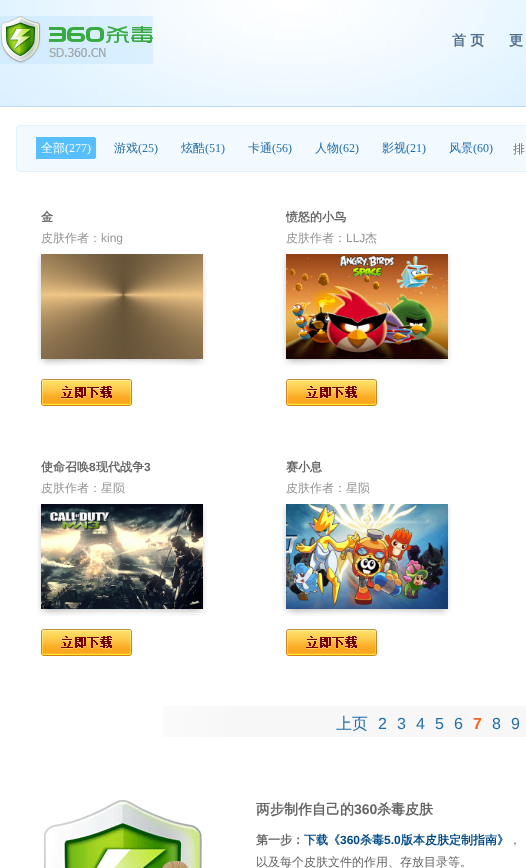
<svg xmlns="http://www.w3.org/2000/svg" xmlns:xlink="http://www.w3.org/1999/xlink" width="526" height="868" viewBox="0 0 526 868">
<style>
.cls-1{font:bold 14px WenQuanYi Zen Hei;fill:#4f6f8c}
.cls-2{font:500 12px WenQuanYi Zen Hei;fill:#ffffff}
.cls-3{font:12px Liberation Serif;fill:#ffffff}
.cls-4{font:500 12px WenQuanYi Zen Hei;fill:#246fab}
.cls-5{font:12px Liberation Serif;fill:#246fab}
.cls-6{font:500 12px WenQuanYi Zen Hei;fill:#666666}
.cls-7{font:bold 12px WenQuanYi Zen Hei;fill:#666666}
.cls-8{font:500 12px WenQuanYi Zen Hei;fill:#959595}
.cls-9{font:12px Liberation Sans;fill:#959595}
.cls-10{font:bold 12px Liberation Sans;fill:#666666}
.cls-11{font:500 16px WenQuanYi Zen Hei;fill:#246fab}
.cls-12{font:16px Liberation Sans;fill:#246fab}
.cls-13{font:bold 16px Liberation Sans;fill:#f26522}
.cls-14{font:bold 14px WenQuanYi Zen Hei;fill:#666666}
.cls-15{font:bold 14px Liberation Sans;fill:#666666}
.cls-16{font:bold 12px WenQuanYi Zen Hei;fill:#004985}
.cls-17{font:bold 12px Liberation Sans;fill:#004985}
</style>
<rect width="100%" height="100%" fill="#ffffff"/>
<image xlink:href="image0.png" x="0" y="0" width="526" height="106"/>
<image xlink:href="image1.png" x="0" y="16" width="153" height="48"/>
<rect fill="#bcd9f0" x="0" y="106" width="526" height="1"/>
<image xlink:href="image2.png" x="16" y="125" width="510" height="47"/>
<rect fill="#57beff" x="36" y="137" width="59" height="22"/>
<image xlink:href="image3.png" x="95" y="137" width="1" height="22"/>
<image xlink:href="image4.png" x="37" y="253" width="170" height="113"/>
<image xlink:href="image5.png" x="41" y="254" width="162" height="105"/>
<image xlink:href="image6.png" x="41" y="379" width="91" height="27"/>
<image xlink:href="image4.png" x="282" y="253" width="170" height="113"/>
<image xlink:href="image7.png" x="286" y="254" width="162" height="105"/>
<image xlink:href="image6.png" x="286" y="379" width="91" height="27"/>
<image xlink:href="image4.png" x="37" y="503" width="170" height="113"/>
<image xlink:href="image8.png" x="41" y="504" width="162" height="105"/>
<image xlink:href="image6.png" x="41" y="629" width="91" height="27"/>
<image xlink:href="image4.png" x="282" y="503" width="170" height="113"/>
<image xlink:href="image9.png" x="286" y="504" width="162" height="105"/>
<image xlink:href="image6.png" x="286" y="629" width="91" height="27"/>
<image xlink:href="image10.png" x="163" y="706" width="363" height="31"/>
<image xlink:href="image11.png" x="44" y="800" width="158" height="68"/>
<text class="cls-1" x="452" y="45">首 页</text>
<text class="cls-1" x="509" y="45">更</text>
<text class="cls-2" x="41" y="152">全部</text>
<text class="cls-3" x="65" y="152">(277)</text>
<text class="cls-4" x="114" y="152">游戏</text>
<text class="cls-5" x="138" y="152">(25)</text>
<text class="cls-4" x="181" y="152">炫酷</text>
<text class="cls-5" x="205" y="152">(51)</text>
<text class="cls-4" x="248" y="152">卡通</text>
<text class="cls-5" x="272" y="152">(56)</text>
<text class="cls-4" x="315" y="152">人物</text>
<text class="cls-5" x="339" y="152">(62)</text>
<text class="cls-4" x="382" y="152">影视</text>
<text class="cls-5" x="406" y="152">(21)</text>
<text class="cls-4" x="449" y="152">风景</text>
<text class="cls-5" x="473" y="152">(60)</text>
<text class="cls-6" x="513" y="153">排</text>
<text class="cls-7" x="41" y="221">金</text>
<text class="cls-8" x="41" y="242">皮肤作者：</text>
<text class="cls-9" x="101" y="242">king</text>
<text class="cls-7" x="286" y="221">愤怒的小鸟</text>
<text class="cls-8" x="286" y="242">皮肤作者：</text>
<text class="cls-9" x="346" y="242">LLJ</text>
<text class="cls-8" x="365" y="242">杰</text>
<text class="cls-7" x="41" y="471">使命召唤</text>
<text class="cls-10" x="89" y="471">8</text>
<text class="cls-7" x="96" y="471">现代战争</text>
<text class="cls-10" x="144" y="471">3</text>
<text class="cls-8" x="41" y="492">皮肤作者：星陨</text>
<text class="cls-7" x="286" y="471">赛小息</text>
<text class="cls-8" x="286" y="492">皮肤作者：星陨</text>
<text class="cls-11" x="336" y="729">上页</text>
<text class="cls-12" x="378" y="729">2</text>
<text class="cls-12" x="397" y="729">3</text>
<text class="cls-12" x="416" y="729">4</text>
<text class="cls-12" x="435" y="729">5</text>
<text class="cls-12" x="454" y="729">6</text>
<text class="cls-13" x="473" y="729">7</text>
<text class="cls-12" x="492" y="729">8</text>
<text class="cls-12" x="511" y="729">9</text>
<text class="cls-14" x="256" y="814">两步制作自己的</text>
<text class="cls-15" x="354" y="814">360</text>
<text class="cls-14" x="377" y="814">杀毒皮肤</text>
<text class="cls-7" x="256" y="844">第一步：</text>
<text class="cls-16" x="304" y="844">下载《</text>
<text class="cls-17" x="340" y="844">360</text>
<text class="cls-16" x="360" y="844">杀毒</text>
<text class="cls-17" x="384" y="844">5.0</text>
<text class="cls-16" x="401" y="844">版本皮肤定制指南》</text>
<text class="cls-6" x="509" y="844">，</text>
<text class="cls-6" x="256" y="866">以及每个皮肤文件的作用、存放目录等。</text>
</svg>
